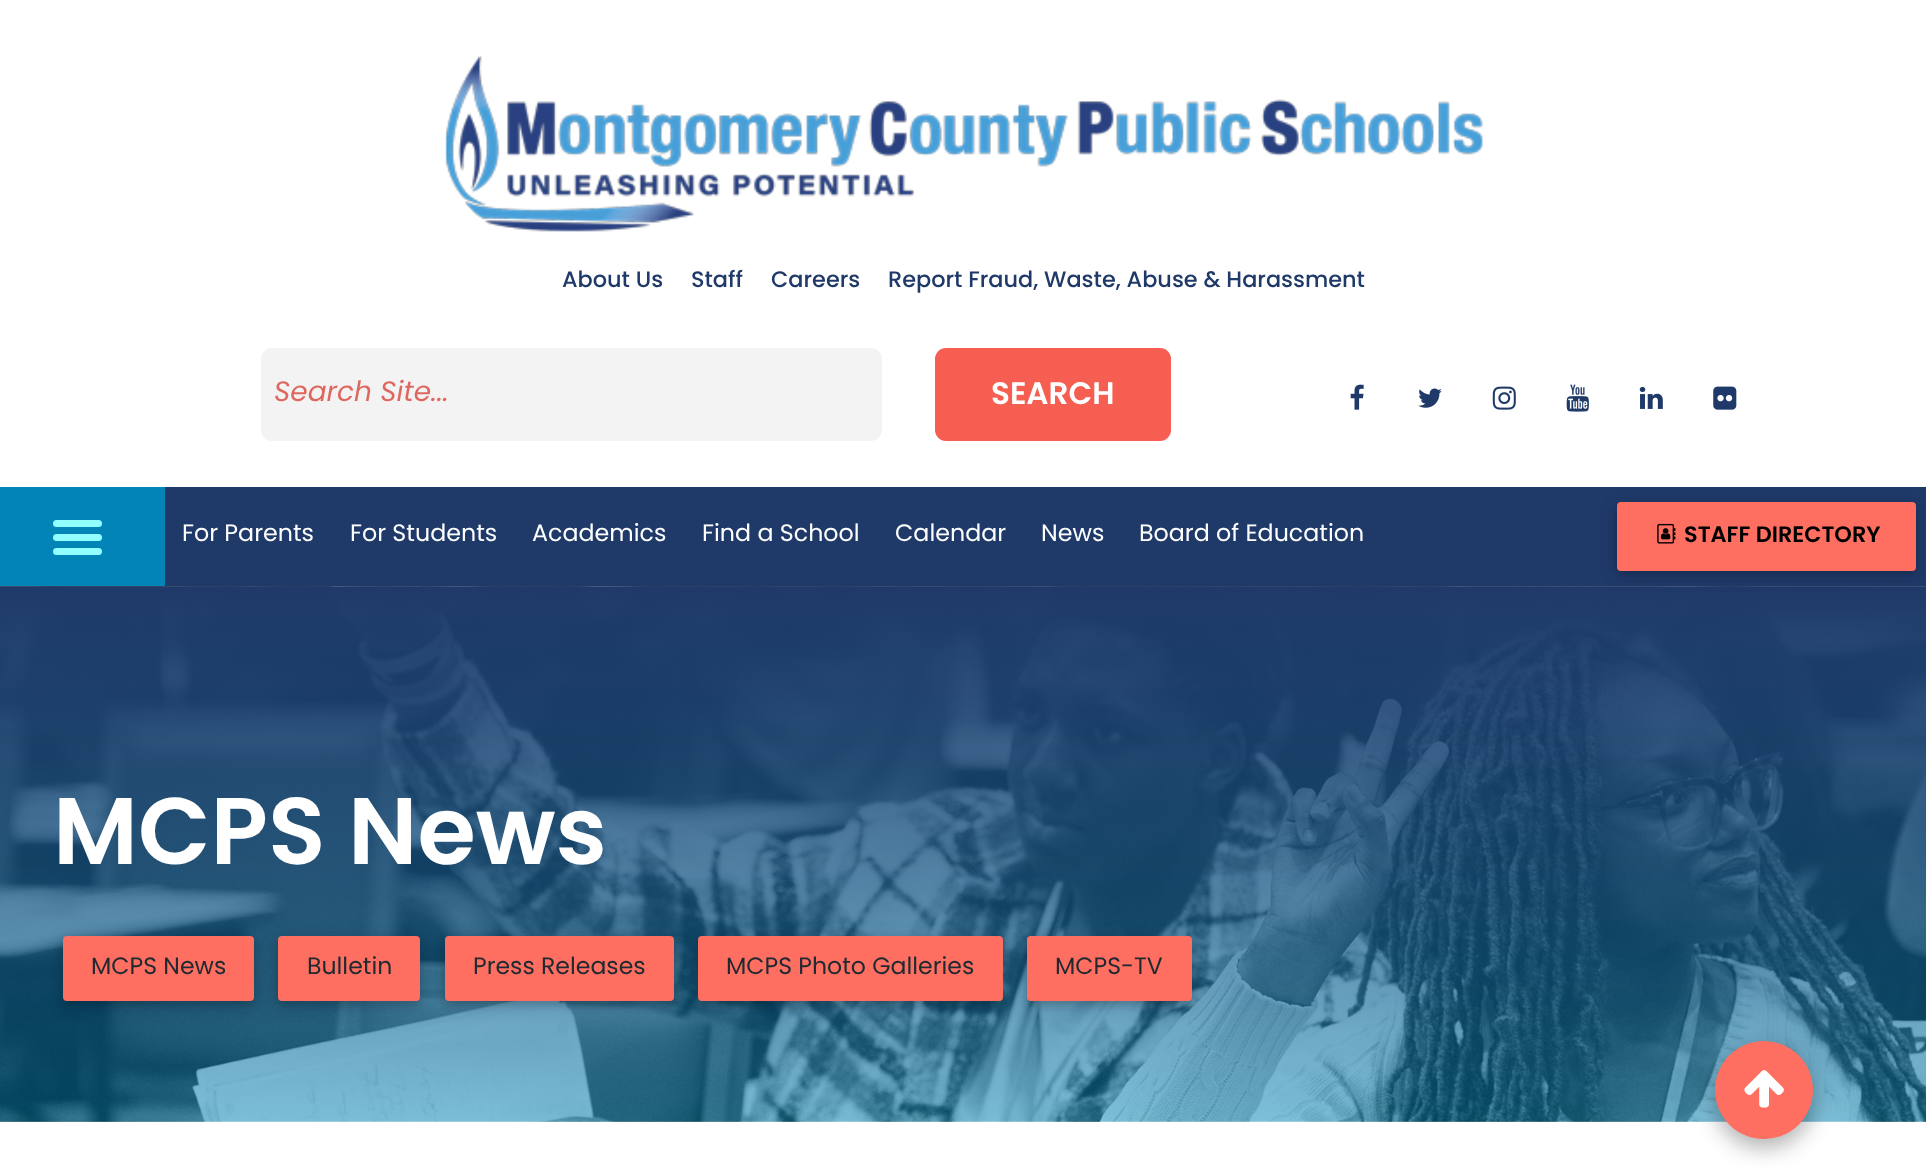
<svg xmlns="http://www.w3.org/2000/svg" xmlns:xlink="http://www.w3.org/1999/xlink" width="1926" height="1169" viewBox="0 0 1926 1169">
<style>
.cls-1{font:500 22.4px Poppins;fill:#1f3a69}
.cls-2{font:italic 28px Poppins;fill:#de6860}
.cls-3{font:600 31px Poppins;fill:#ffffff}
.cls-4{font:23.75px Poppins;fill:#ffffff}
.cls-5{font:600 22.4px Poppins;fill:#000000}
.cls-6{font:600 94.5px Poppins;fill:#ffffff}
.cls-7{font:23.6px Poppins;fill:#212931}
</style>
<rect width="100%" height="100%" fill="#ffffff"/>
<image xlink:href="image0.png" x="444" y="55" width="1039" height="177"/>
<rect fill="#f3f3f3" x="261" y="348" width="621" height="93" rx="11"/>
<rect fill="#f55e50" x="935" y="348" width="236" height="93" rx="11"/>
<image xlink:href="image1.png" x="1350" y="384" width="14" height="26"/>
<image xlink:href="image2.png" x="1418" y="388" width="24" height="20"/>
<image xlink:href="image3.png" x="1492" y="386" width="24" height="24"/>
<image xlink:href="image4.png" x="1566" y="384" width="23" height="28"/>
<image xlink:href="image5.png" x="1639" y="386" width="24" height="23"/>
<image xlink:href="image6.png" x="1713" y="386" width="24" height="24"/>
<rect fill="#0285b6" x="0" y="487" width="165" height="99"/>
<rect fill="#91ffff" x="53" y="534" width="49" height="7" rx="3.5"/>
<rect fill="#91ffff" x="53" y="520" width="49" height="7" rx="3.5"/>
<rect fill="#91ffff" x="53" y="548" width="49" height="7" rx="3.5"/>
<rect fill="#1f3a69" x="165" y="487" width="1761" height="99"/>
<image xlink:href="image8.png" x="0" y="586" width="1926" height="536"/>
<rect fill="#000000" fill-opacity="0.12" filter="blur(9px)" x="1617" y="506" width="299" height="68" rx="4"/>
<rect fill="#000000" fill-opacity="0.16" filter="blur(4.5px)" x="1617" y="506" width="299" height="68" rx="4"/>
<rect fill="#ff6f61" x="1617" y="502" width="299" height="69" rx="4"/>
<image xlink:href="image7.png" x="1657" y="523" width="19" height="21"/>
<rect fill="#000000" fill-opacity="0.12" filter="blur(9px)" x="63" y="940" width="191" height="65" rx="4"/>
<rect fill="#000000" fill-opacity="0.16" filter="blur(4.5px)" x="63" y="940" width="191" height="65" rx="4"/>
<rect fill="#ff6f61" x="63" y="936" width="191" height="65" rx="4"/>
<rect fill="#000000" fill-opacity="0.12" filter="blur(9px)" x="278" y="940" width="142" height="65" rx="4"/>
<rect fill="#000000" fill-opacity="0.16" filter="blur(4.5px)" x="278" y="940" width="142" height="65" rx="4"/>
<rect fill="#ff6f61" x="278" y="936" width="142" height="65" rx="4"/>
<rect fill="#000000" fill-opacity="0.12" filter="blur(9px)" x="445" y="940" width="229" height="65" rx="4"/>
<rect fill="#000000" fill-opacity="0.16" filter="blur(4.5px)" x="445" y="940" width="229" height="65" rx="4"/>
<rect fill="#ff6f61" x="445" y="936" width="229" height="65" rx="4"/>
<rect fill="#000000" fill-opacity="0.12" filter="blur(9px)" x="698" y="940" width="305" height="65" rx="4"/>
<rect fill="#000000" fill-opacity="0.16" filter="blur(4.5px)" x="698" y="940" width="305" height="65" rx="4"/>
<rect fill="#ff6f61" x="698" y="936" width="305" height="65" rx="4"/>
<rect fill="#000000" fill-opacity="0.12" filter="blur(9px)" x="1027" y="940" width="165" height="65" rx="4"/>
<rect fill="#000000" fill-opacity="0.16" filter="blur(4.5px)" x="1027" y="940" width="165" height="65" rx="4"/>
<rect fill="#ff6f61" x="1027" y="936" width="165" height="65" rx="4"/>
<rect fill="#000000" fill-opacity="0.15" filter="blur(13px)" x="1715" y="1048" width="98" height="98" rx="49"/>
<rect fill="#000000" fill-opacity="0.18" filter="blur(9.5px)" x="1715" y="1050" width="98" height="98" rx="49"/>
<circle fill="#ff6f61" cx="1764" cy="1090" r="49"/>
<image xlink:href="image9.png" x="1744" y="1070" width="40" height="38"/>
<text class="cls-1" x="562" y="287">About Us</text>
<text class="cls-1" x="691" y="287">Staff</text>
<text class="cls-1" x="771" y="287">Careers</text>
<text class="cls-1" x="888" y="287">Report Fraud, Waste, Abuse &amp; Harassment</text>
<text class="cls-2" x="274" y="401">Search Site...</text>
<text class="cls-3" x="991" y="404">SEARCH</text>
<text class="cls-4" x="182" y="541">For Parents</text>
<text class="cls-4" x="350" y="541">For Students</text>
<text class="cls-4" x="532" y="541">Academics</text>
<text class="cls-4" x="702" y="541">Find a School</text>
<text class="cls-4" x="895" y="541">Calendar</text>
<text class="cls-4" x="1041" y="541">News</text>
<text class="cls-4" x="1139" y="541">Board of Education</text>
<text class="cls-5" x="1684" y="542">STAFF DIRECTORY</text>
<text class="cls-6" x="53" y="864">MCPS News</text>
<text class="cls-7" x="91" y="974">MCPS News</text>
<text class="cls-7" x="307" y="974">Bulletin</text>
<text class="cls-7" x="473" y="974">Press Releases</text>
<text class="cls-7" x="726" y="974">MCPS Photo Galleries</text>
<text class="cls-7" x="1055" y="974">MCPS-TV</text>
</svg>
